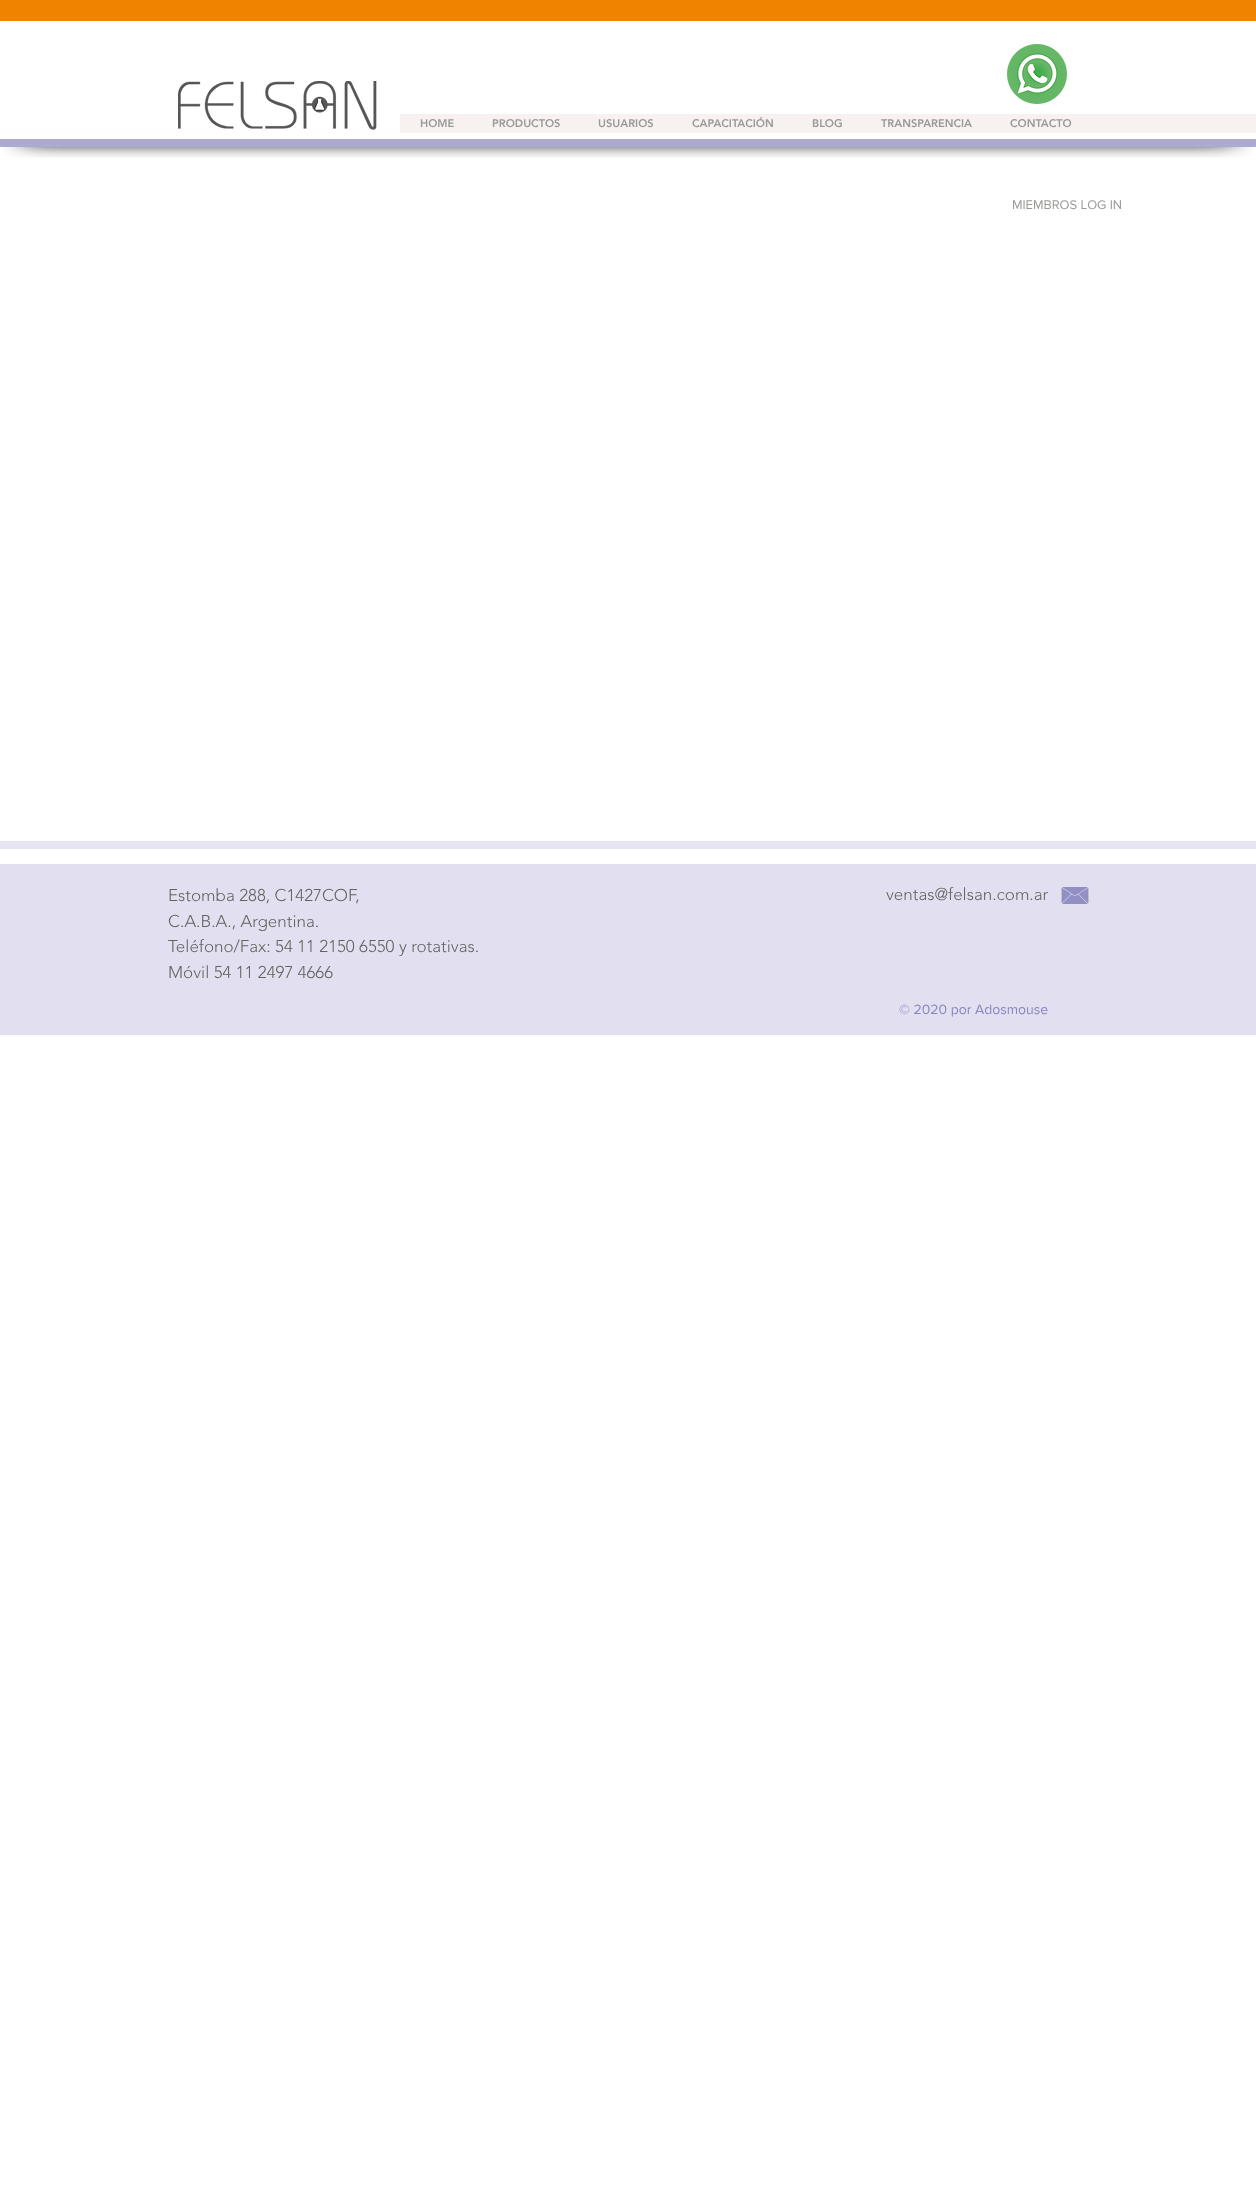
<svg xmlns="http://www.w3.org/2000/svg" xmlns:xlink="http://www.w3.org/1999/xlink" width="1256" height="2186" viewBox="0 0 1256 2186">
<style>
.cls-1{font:900 11px 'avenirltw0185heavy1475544';fill:#999997}
.cls-2{font:13px 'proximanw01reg';fill:#999997}
.cls-3{font:300 17px 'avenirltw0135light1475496';fill:#646363}
.cls-4{font:14px 'proximanw01reg';fill:#8886bf}
</style>
<rect width="100%" height="100%" fill="#ffffff"/>
<image xlink:href="image0.png" x="1007" y="44" width="60" height="60"/>
<rect fill="#f08300" x="0" y="0" width="1256" height="21"/>
<image xlink:href="image1.png" x="178" y="81" width="199" height="49"/>
<rect fill="#f7f2f0" x="400" y="114" width="856" height="19"/>
<rect fill="#acaad2" x="0" y="139" width="1256" height="8"/>
<image xlink:href="image2.png" x="3" y="147" width="97" height="11"/>
<image xlink:href="image3.png" x="100" y="147" width="1056" height="11"/>
<image xlink:href="image4.png" x="1156" y="147" width="97" height="11"/>
<rect fill="#e7e5f3" x="0" y="841" width="1256" height="8"/>
<rect fill="#e2e0f0" x="0" y="864" width="1256" height="171"/>
<image xlink:href="image5.png" x="1061" y="887" width="28" height="17"/>
<text class="cls-1" x="420" y="127">HOME</text>
<text class="cls-1" x="492" y="127">PRODUCTOS</text>
<text class="cls-1" x="598" y="127">USUARIOS</text>
<text class="cls-1" x="692" y="127">CAPACITACIÓN</text>
<text class="cls-1" x="812" y="127">BLOG</text>
<text class="cls-1" x="881" y="127">TRANSPARENCIA</text>
<text class="cls-1" x="1010" y="127">CONTACTO</text>
<text class="cls-2" x="1012" y="209">MIEMBROS LOG IN</text>
<text class="cls-3"><tspan x="168" y="901">Estomba 288, C1427COF,</tspan><tspan x="168" y="927">C.A.B.A., Argentina.</tspan><tspan x="168" y="952">Teléfono/Fax: 54 11 2150 6550 y rotativas.</tspan><tspan x="168" y="978">Móvil 54 11 2497 4666</tspan></text>
<text class="cls-3" x="886" y="900">ventas@felsan.com.ar</text>
<text class="cls-4" x="899" y="1014">© 2020 por Adosmouse</text>
</svg>
